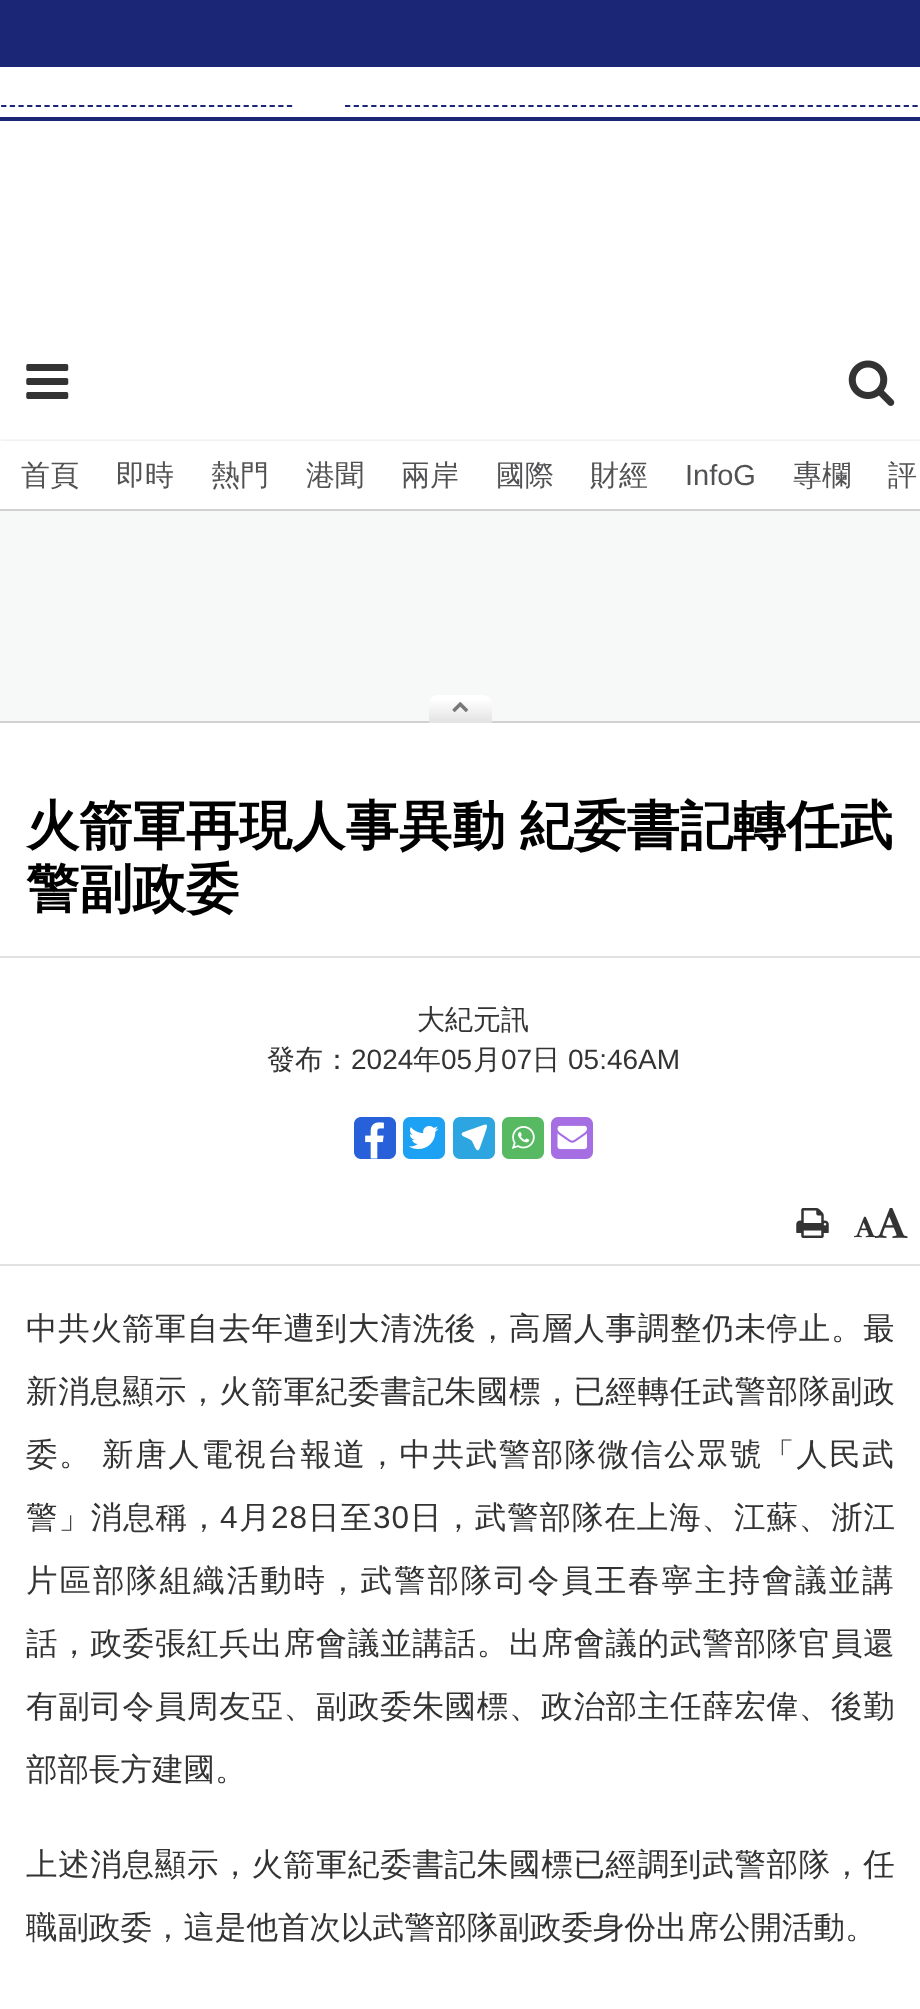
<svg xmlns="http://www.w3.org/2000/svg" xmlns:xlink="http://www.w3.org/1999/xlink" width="920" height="2009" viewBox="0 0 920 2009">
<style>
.cls-1{font:500 29px WenQuanYi Zen Hei;fill:#525153}
.cls-2{font:29px Liberation Sans;fill:#525153}
.cls-3{font:bold 53.25px WenQuanYi Zen Hei;fill:#000000}
.cls-4{font:500 28px WenQuanYi Zen Hei;fill:#333333}
.cls-5{font:28px Liberation Sans;fill:#333333}
.cls-6{font:500 31.5px WenQuanYi Zen Hei;letter-spacing:0.7px;fill:#333333}
.cls-7{font:500 31.5px WenQuanYi Zen Hei;letter-spacing:1.55px;fill:#333333}
.cls-8{font:500 31.5px WenQuanYi Zen Hei;letter-spacing:0.9px;fill:#333333}
.cls-9{font:31.5px Liberation Sans;letter-spacing:0.9px;fill:#333333}
.cls-10{font:500 31.5px WenQuanYi Zen Hei;letter-spacing:1.95px;fill:#333333}
.cls-11{font:500 31.5px WenQuanYi Zen Hei;fill:#333333}
</style>
<defs>
<clipPath id="clip1"><rect x="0" y="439" width="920" height="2"/></clipPath>
<linearGradient id="g1" gradientUnits="userSpaceOnUse" x1="460" y1="695" x2="460" y2="723"><stop offset="0.15" stop-color="#ffffff"/><stop offset="1" stop-color="#e2e2e2"/></linearGradient>
</defs>
<rect width="100%" height="100%" fill="#ffffff"/>
<rect fill="#1c2676" x="0" y="0" width="920" height="121"/>
<rect fill="#ffffff" x="0" y="67" width="920" height="50"/>
<path fill="none" stroke="#1c2676" stroke-width="1.8" stroke-dasharray="5.25 3.41" d="M-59.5 106H292.5"/>
<path fill="none" stroke="#1c2676" stroke-width="1.8" stroke-dasharray="5.25 3.48" d="M345 106H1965.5"/>
<image xlink:href="image0.png" x="26" y="364" width="43" height="35"/>
<image xlink:href="image1.png" x="848" y="360" width="47" height="46"/>
<g clip-path="url(#clip1)">
<rect fill="#000000" fill-opacity="0.34" filter="blur(2.5px)" x="0" y="443" width="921" height="68"/>
</g>
<rect fill="#f7f9f8" x="0" y="511" width="920" height="210"/>
<rect fill="#d1d1d3" x="0" y="509" width="920" height="2"/>
<rect fill="#d1d1d3" x="0" y="721" width="920" height="2"/>
<path fill="url(#g1)" d="M438 695H483C488 695 492 699 492 704V723H429V704C429 699 433 695 438 695Z"/>
<image xlink:href="image2.png" x="452" y="702" width="17" height="10"/>
<rect fill="#e2e2e2" x="0" y="956" width="920" height="2"/>
<rect fill="#e2e2e2" x="0" y="1264" width="920" height="2"/>
<image xlink:href="image3.png" x="354" y="1117" width="42" height="42"/>
<image xlink:href="image4.png" x="403" y="1117" width="42" height="42"/>
<image xlink:href="image5.png" x="453" y="1117" width="42" height="42"/>
<image xlink:href="image6.png" x="502" y="1117" width="42" height="42"/>
<image xlink:href="image7.png" x="551" y="1117" width="42" height="42"/>
<image xlink:href="image8.png" x="796" y="1208" width="33" height="30"/>
<image xlink:href="image9.png" x="854" y="1216" width="23" height="22"/>
<image xlink:href="image10.png" x="875" y="1208" width="33" height="30"/>
<text class="cls-1" x="21" y="485">首頁</text>
<text class="cls-1" x="116" y="485">即時</text>
<text class="cls-1" x="211" y="485">熱門</text>
<text class="cls-1" x="306" y="485">港聞</text>
<text class="cls-1" x="401" y="485">兩岸</text>
<text class="cls-1" x="496" y="485">國際</text>
<text class="cls-1" x="590" y="485">財經</text>
<text class="cls-2" x="685" y="485">InfoG</text>
<text class="cls-1" x="793" y="485">專欄</text>
<text class="cls-1" x="888" y="485">評</text>
<text class="cls-3" x="26" y="844">火箭軍再現人事異動</text>
<text class="cls-3" x="520" y="844">紀委書記轉任武</text>
<text class="cls-3" x="26" y="907">警副政委</text>
<text class="cls-4" x="417" y="1029">大紀元訊</text>
<text class="cls-4" x="267" y="1069">發布：</text>
<text class="cls-5" x="351" y="1069">2024</text>
<text class="cls-4" x="413" y="1069">年</text>
<text class="cls-5" x="441" y="1069">05</text>
<text class="cls-4" x="473" y="1069">月</text>
<text class="cls-5" x="501" y="1069">07</text>
<text class="cls-4" x="532" y="1069">日</text>
<text class="cls-5" x="568" y="1069">05:46AM</text>
<text class="cls-6" x="26" y="1339">中共火箭軍自去年遭到大清洗後，高層人事調整仍未停止。最</text>
<text class="cls-6" x="26" y="1402">新消息顯示，火箭軍紀委書記朱國標，已經轉任武警部隊副政</text>
<text class="cls-7" x="26" y="1465" word-spacing="-1">委。 新唐人電視台報道，中共武警部隊微信公眾號「人民武</text>
<text class="cls-8" x="26" y="1528">警」消息稱，</text>
<text class="cls-9" x="220" y="1528">4</text>
<text class="cls-8" x="239" y="1528">月</text>
<text class="cls-9" x="271" y="1528">28</text>
<text class="cls-8" x="308" y="1528">日至</text>
<text class="cls-9" x="373" y="1528">30</text>
<text class="cls-8" x="410" y="1528">日，武警部隊在上海、江蘇、浙江</text>
<text class="cls-10" x="26" y="1591">片區部隊組織活動時，武警部隊司令員王春寧主持會議並講</text>
<text class="cls-6" x="26" y="1654">話，政委張紅兵出席會議並講話。出席會議的武警部隊官員還</text>
<text class="cls-6" x="26" y="1717">有副司令員周友亞、副政委朱國標、政治部主任薛宏偉、後勤</text>
<text class="cls-11" x="26" y="1780">部部長方建國。</text>
<text class="cls-6" x="26" y="1875">上述消息顯示，火箭軍紀委書記朱國標已經調到武警部隊，任</text>
<text class="cls-11" x="26" y="1938">職副政委，這是他首次以武警部隊副政委身份出席公開活動。</text>
</svg>
